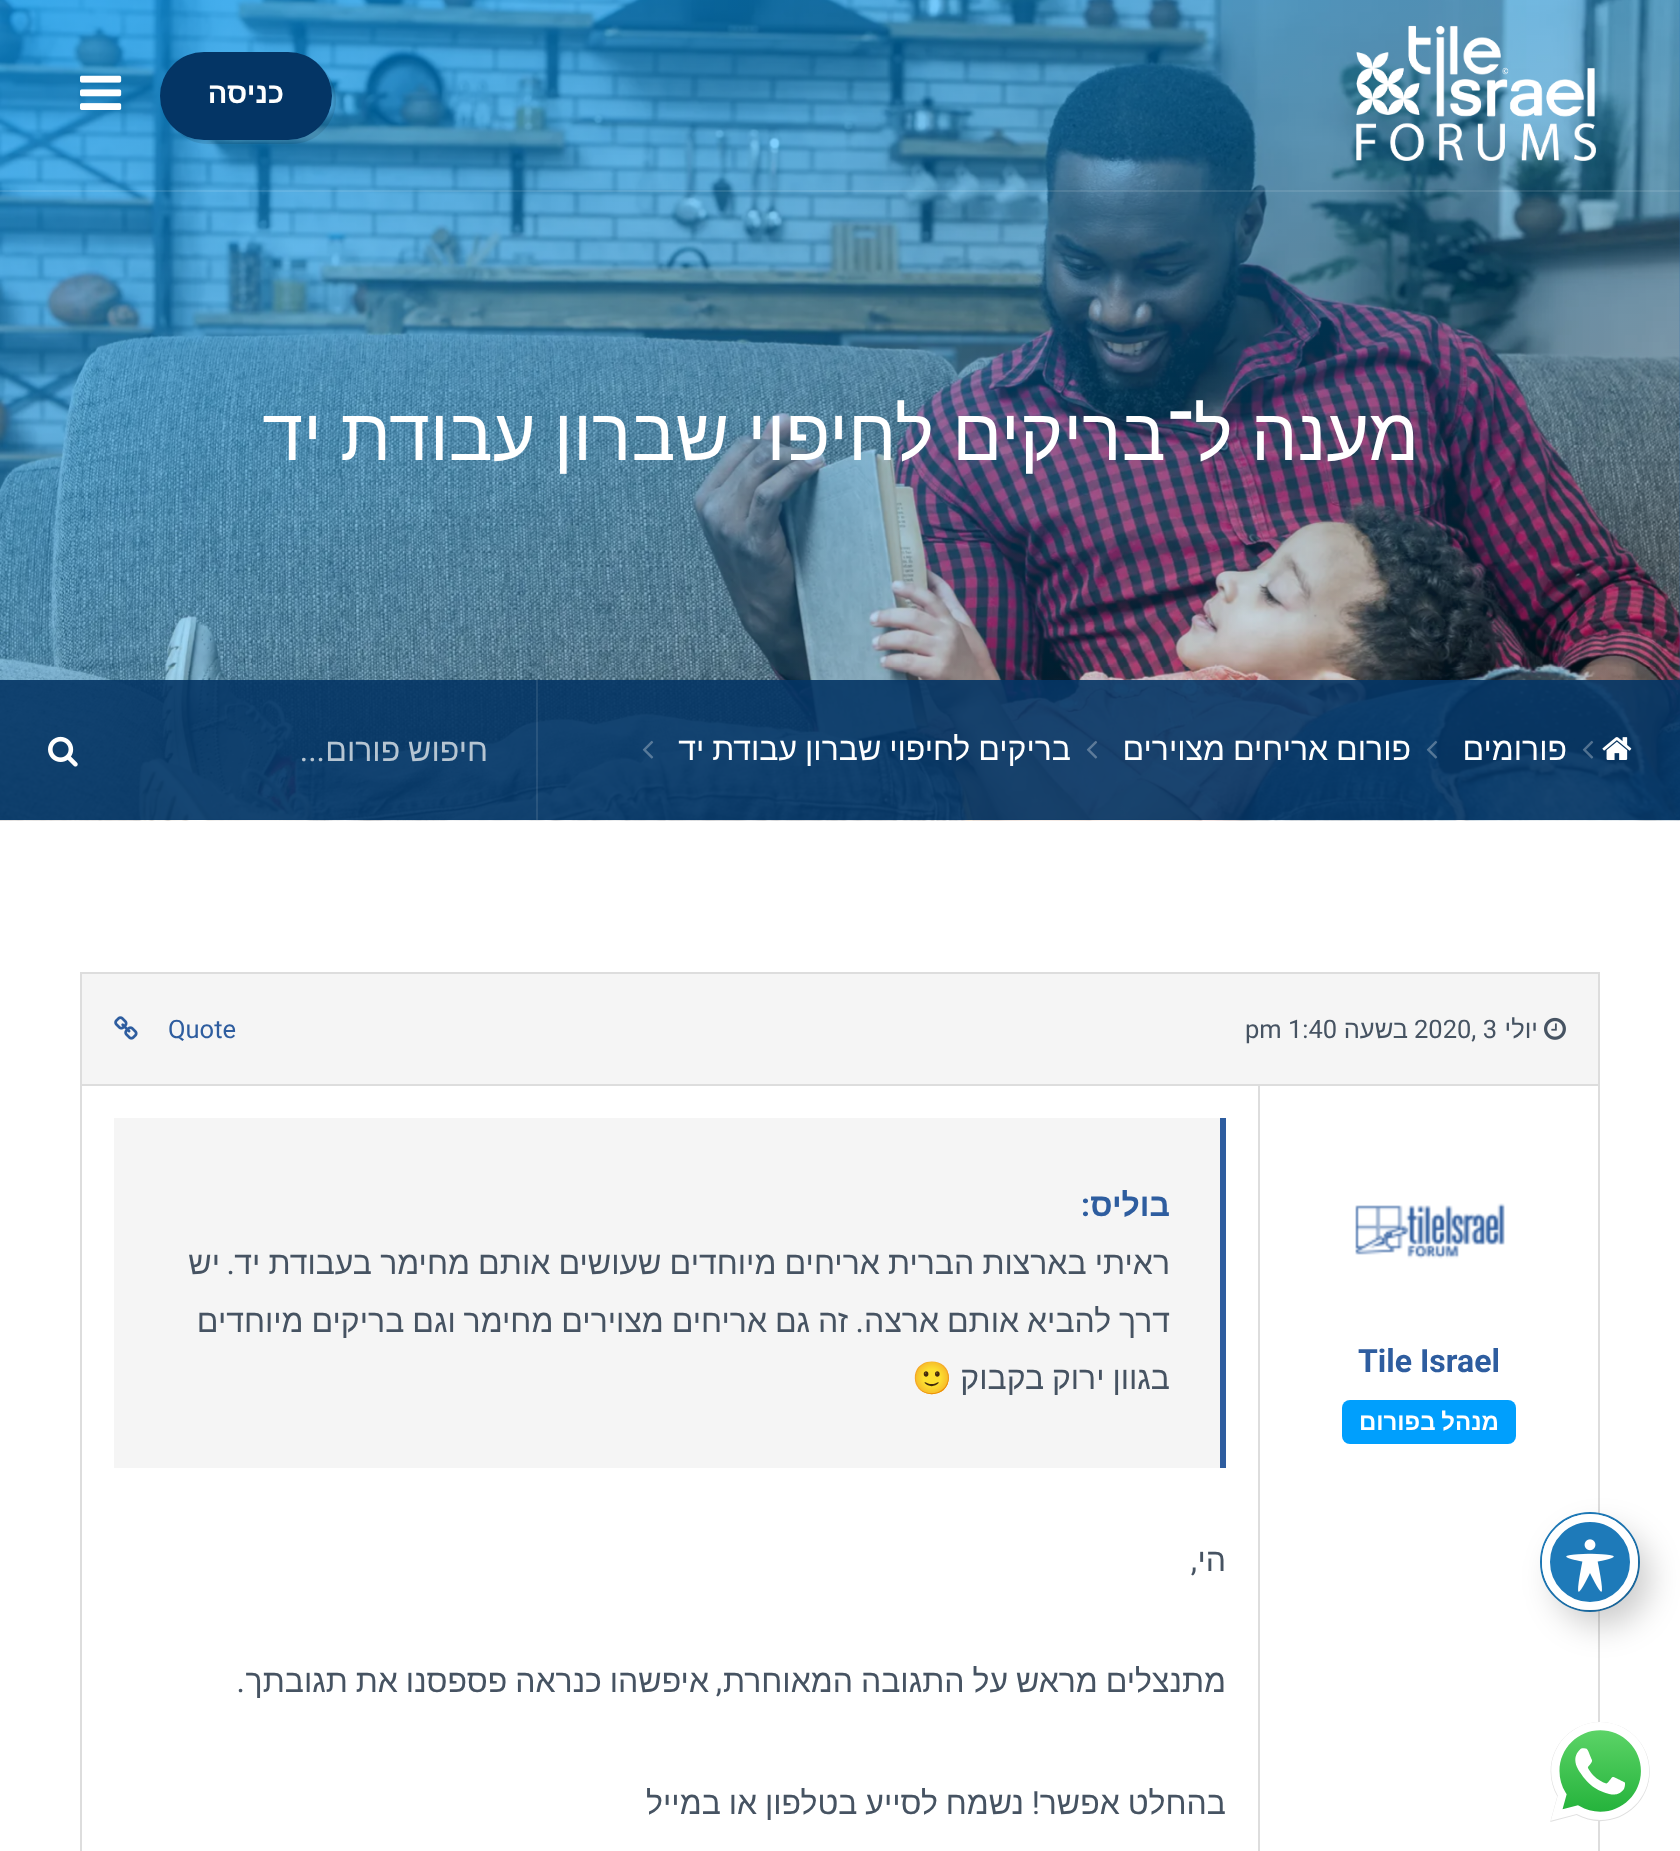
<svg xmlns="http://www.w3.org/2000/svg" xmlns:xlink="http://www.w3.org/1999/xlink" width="1680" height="1851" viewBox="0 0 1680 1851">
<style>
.cls-1{font:bold 29px Liberation Sans;direction:rtl;fill:#ffffff}
.cls-2{font:73.6px Liberation Sans;direction:rtl;fill:#ffffff}
.cls-3{font:32px Liberation Sans;direction:rtl;fill:#ffffff}
.cls-4{font:32px Liberation Sans;direction:rtl;fill:#b6c5d2}
.cls-5{font:32px Roboto;direction:rtl;fill:#b6c5d2}
.cls-6{font:25.5px Liberation Sans;direction:rtl;fill:#465362}
.cls-7{font:25.5px Roboto;fill:#465362}
.cls-8{font:25.5px Roboto;fill:#2e5d9f}
.cls-9{font:bold 32px Roboto;fill:#2e5d9f}
.cls-10{font:bold 24px Liberation Sans;direction:rtl;fill:#ffffff}
.cls-11{font:bold 32px Liberation Sans;direction:rtl;fill:#2e5d9f}
.cls-12{font:bold 32px Roboto;direction:rtl;fill:#2e5d9f}
.cls-13{font:32px Liberation Sans;direction:rtl;fill:#465362}
.cls-14{font:32px Roboto;direction:rtl;fill:#465362}
.cls-15{font:32px Noto Color Emoji;direction:rtl;fill:#465362}
</style>
<defs>
<linearGradient id="g1" gradientUnits="userSpaceOnUse" x1="610" y1="-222" x2="1070" y2="1042"><stop offset="0" stop-color="#009ffd" stop-opacity="0.7"/><stop offset="1" stop-color="#009ffd" stop-opacity="0"/></linearGradient>
</defs>
<rect width="100%" height="100%" fill="#ffffff"/>
<rect fill="#2e5d9f" x="0" y="0" width="1680" height="820"/>
<image xlink:href="image0.png" x="0" y="0" width="1680" height="821"/>
<rect fill="url(#g1)" x="0" y="0" width="1680" height="820"/>
<rect fill="#ffffff" fill-opacity="0.1" x="0" y="190" width="1680" height="2"/>
<image xlink:href="image1.png" x="1356" y="25" width="240" height="136"/>
<path fill="#000000" fill-opacity="0.1" d="M175 129C183 138 195 144 208 144H292C316 144 336 124 336 100C336 87 330 75 321 67C328 75 332 85 332 96C332 120 312 140 288 140H204C193 140 183 136 175 129Z"/>
<rect fill="#043565" x="160" y="52" width="172" height="88" rx="44"/>
<image xlink:href="image2.png" x="80" y="75" width="42" height="35"/>
<rect fill="#043565" fill-opacity="0.9" x="0" y="680" width="1680" height="140"/>
<image xlink:href="image3.png" x="1602" y="737" width="30" height="23"/>
<image xlink:href="image4.png" x="1582" y="740" width="12" height="19"/>
<image xlink:href="image5.png" x="1426" y="740" width="12" height="19"/>
<image xlink:href="image6.png" x="1086" y="740" width="12" height="19"/>
<image xlink:href="image7.png" x="642" y="740" width="12" height="19"/>
<rect fill="#ffffff" fill-opacity="0.1" x="536" y="680" width="2" height="140"/>
<image xlink:href="image8.png" x="48" y="736" width="30" height="31"/>
<rect fill="#dddddd" x="80" y="972" width="1520" height="2"/>
<rect fill="#dddddd" x="1598" y="972" width="2" height="879"/>
<circle fill="none" stroke="#1e7ab9" stroke-width="2" cx="1590" cy="1562" r="49"/>
<rect fill="#000000" fill-opacity="0.2" filter="blur(16px)" x="1554" y="1530" width="96" height="96" rx="48"/>
<circle fill="#1e7ab9" stroke="#ffffff" stroke-width="8" cx="1590" cy="1562" r="44"/>
<image xlink:href="image9.png" x="1566" y="1539" width="48" height="53"/>
<rect fill="#dddddd" x="80" y="972" width="2" height="879"/>
<rect fill="#f5f5f5" x="82" y="974" width="1516" height="110"/>
<rect fill="#dddddd" x="82" y="1084" width="1516" height="2"/>
<image xlink:href="image10.png" x="1544" y="1017" width="22" height="23"/>
<image xlink:href="image11.png" x="114" y="1016" width="24" height="24"/>
<rect fill="#dddddd" x="1258" y="1086" width="2" height="765"/>
<image xlink:href="image12.png" x="1355" y="1203" width="150" height="56"/>
<rect fill="#009ffd" x="1342" y="1400" width="174" height="44" rx="8"/>
<rect fill="#f5f5f5" x="114" y="1118" width="1106" height="350"/>
<rect fill="#2e5d9f" x="1220" y="1118" width="6" height="350"/>
<image xlink:href="image13.png" x="1550" y="1722" width="100" height="100"/>
<text class="cls-1" x="284" y="103">כניסה</text>
<text class="cls-2" x="1419" y="460" word-spacing="-2.25">מענה ל־בריקים לחיפוי שברון עבודת יד</text>
<text class="cls-3" x="1567" y="760">פורומים</text>
<text class="cls-3" x="1411" y="760" word-spacing="-1">פורום אריחים מצוירים</text>
<text class="cls-3" x="1071" y="760" word-spacing="-1">בריקים לחיפוי שברון עבודת יד</text>
<text class="cls-4" x="488" y="761" word-spacing="-1">חיפוש פורום</text>
<text class="cls-5" x="325" y="761">...</text>
<text class="cls-6" x="1538" y="1038">יולי</text>
<text class="cls-7" x="1414" y="1038">2020, 3</text>
<text class="cls-6" x="1408" y="1038">בשעה</text>
<text class="cls-7" x="1245" y="1038">pm 1:40</text>
<text class="cls-8" x="168" y="1038">Quote</text>
<text class="cls-9" x="1358" y="1372">Tile Israel</text>
<text class="cls-10" x="1499" y="1430" word-spacing="-1">מנהל בפורום</text>
<text class="cls-11" x="1170" y="1216">בוליס</text>
<text class="cls-12" x="1090" y="1216">:</text>
<text class="cls-13" x="1170" y="1274" word-spacing="-0.75">ראיתי בארצות הברית אריחים מיוחדים שעושים אותם מחימר בעבודת יד</text>
<text class="cls-14" x="235" y="1274">.</text>
<text class="cls-13" x="220" y="1274">יש</text>
<text class="cls-13" x="1170" y="1332" word-spacing="-1">דרך להביא אותם ארצה</text>
<text class="cls-14" x="864" y="1332">.</text>
<text class="cls-13" x="848" y="1332" word-spacing="-1">זה גם אריחים מצוירים מחימר וגם בריקים מיוחדים</text>
<text class="cls-13" x="1170" y="1389" word-spacing="-1">בגוון ירוק בקבוק</text>
<text class="cls-15" x="952" y="1389">🙂</text>
<text class="cls-13" x="1226" y="1571">הי</text>
<text class="cls-14" x="1197" y="1571">,</text>
<text class="cls-13" x="1226" y="1692" word-spacing="-1">מתנצלים מראש על התגובה המאוחרת</text>
<text class="cls-14" x="722" y="1692">,</text>
<text class="cls-13" x="709" y="1692" word-spacing="-1">איפשהו כנראה פספסנו את תגובתך</text>
<text class="cls-14" x="245" y="1692">.</text>
<text class="cls-13" x="1226" y="1814" word-spacing="-1">בהחלט אפשר</text>
<text class="cls-14" x="1040" y="1814">!</text>
<text class="cls-13" x="1024" y="1814" word-spacing="-1">נשמח לסייע בטלפון או במייל</text>
</svg>
